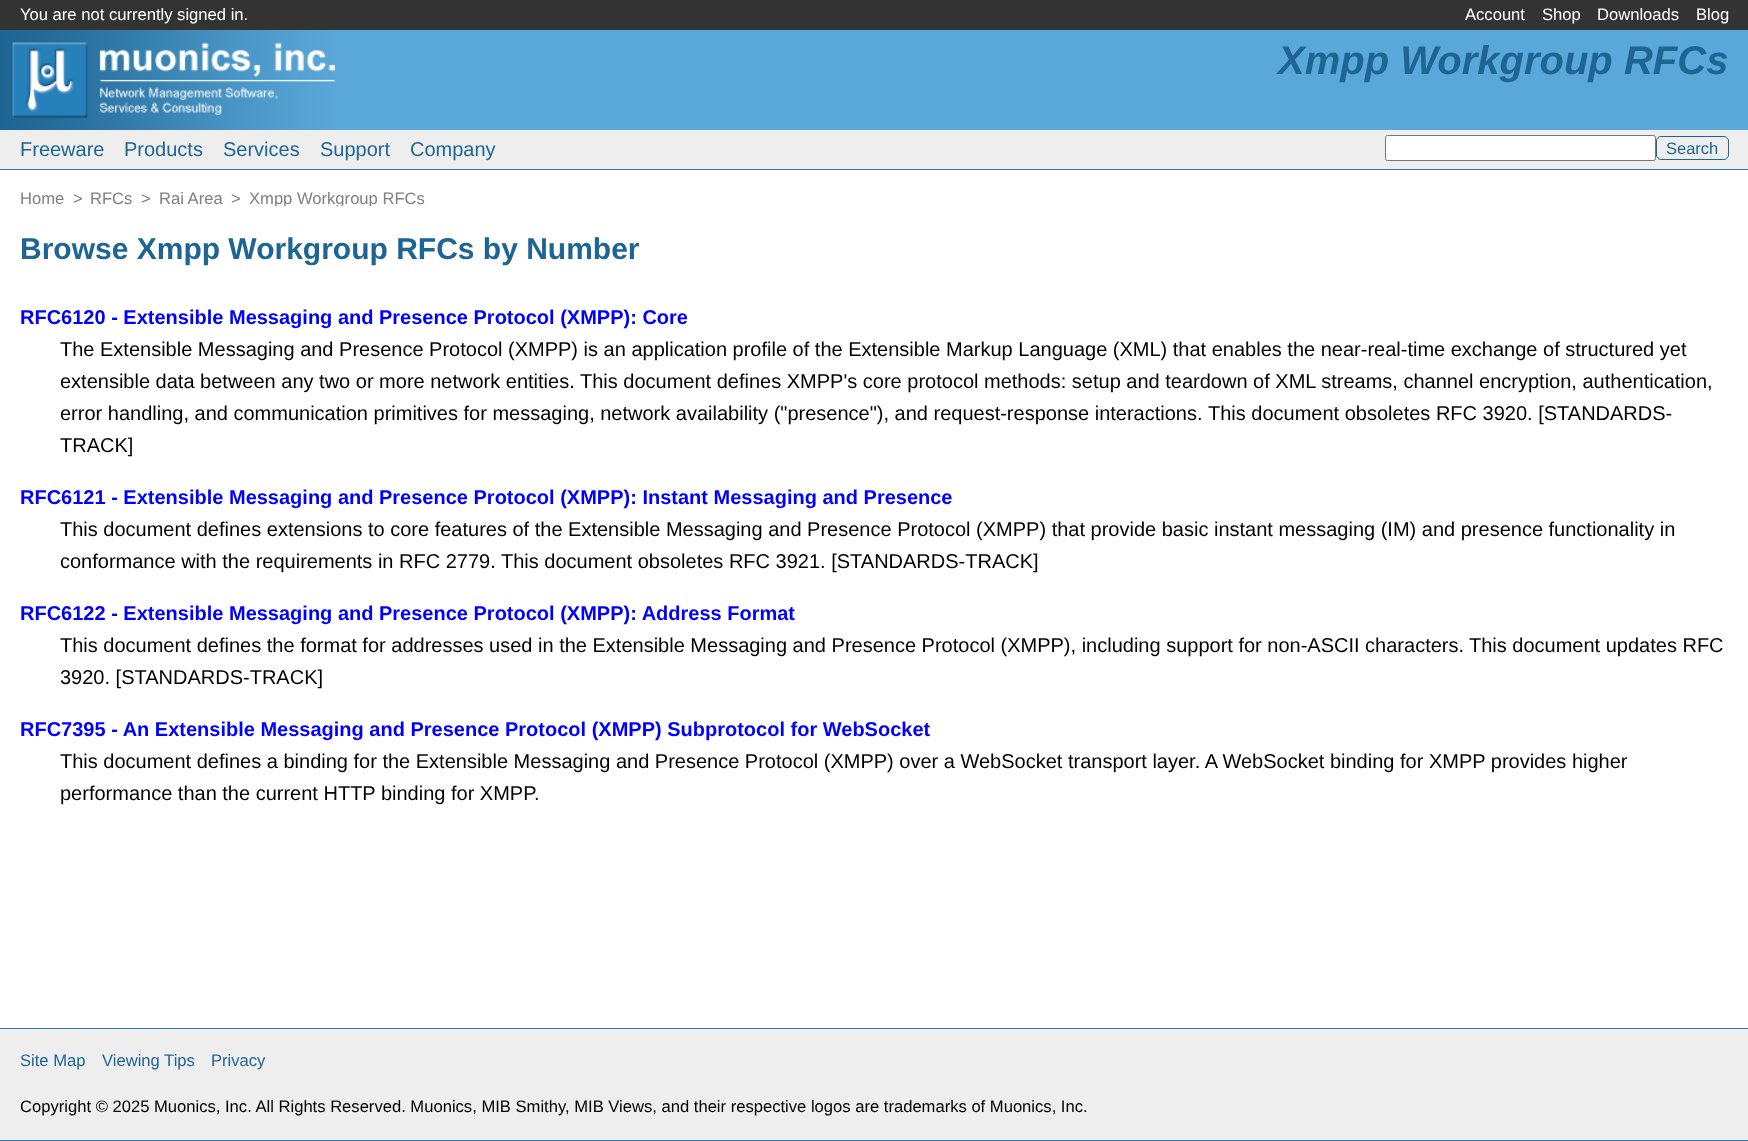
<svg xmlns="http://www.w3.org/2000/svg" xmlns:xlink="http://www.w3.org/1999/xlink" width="1748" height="1141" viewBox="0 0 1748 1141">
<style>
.cls-1{font:16.6px Liberation Sans;fill:#ffffff}
.cls-2{font:italic bold 40px Liberation Sans;fill:#1e6593}
.cls-3{font:20px Liberation Sans;fill:#1e6593}
.cls-4{font:16.5px Liberation Sans;fill:#1e6593}
.cls-5{font:16.6px Liberation Sans;fill:#808080}
.cls-6{font:bold 30px Liberation Sans;fill:#1e6593}
.cls-7{font:bold 20px Liberation Sans;fill:#0000ff}
.cls-8{font:20px Liberation Sans;fill:#000000}
.cls-9{font:16.6px Liberation Sans;fill:#1e6593}
.cls-10{font:16.6px Liberation Sans;fill:#000000}
</style>
<rect width="100%" height="100%" fill="#5aa8d9"/>
<rect fill="#333333" x="0" y="0" width="1748" height="30"/>
<image xlink:href="image0.png" x="0" y="30" width="336" height="100"/>
<rect fill="#eeeeee" x="0" y="130" width="1748" height="39"/>
<rect fill="#2680ba" x="0" y="169" width="1748" height="1"/>
<rect fill="#ffffff" stroke="#767676" x="1385.5" y="135.5" width="270" height="25" rx="2"/>
<rect fill="none" stroke="#1e6593" x="1656.5" y="136.5" width="72" height="23" rx="4.5"/>
<rect fill="#ffffff" x="0" y="170" width="1748" height="36"/>
<rect fill="#eeeeee" x="0" y="1029" width="1748" height="111"/>
<rect fill="#2680ba" x="0" y="1028" width="1748" height="1"/>
<rect fill="#2680ba" x="0" y="1140" width="1748" height="1"/>
<text class="cls-1" x="20" y="20">You are not currently signed in.</text>
<text class="cls-1" x="1465" y="20">Account</text>
<text class="cls-1" x="1542" y="20">Shop</text>
<text class="cls-1" x="1597" y="20">Downloads</text>
<text class="cls-1" x="1696" y="20">Blog</text>
<text class="cls-2" x="1278" y="74">Xmpp Workgroup RFCs</text>
<text class="cls-3" x="20" y="156">Freeware</text>
<text class="cls-3" x="124" y="156">Products</text>
<text class="cls-3" x="223" y="156">Services</text>
<text class="cls-3" x="320" y="156">Support</text>
<text class="cls-3" x="410" y="156">Company</text>
<text class="cls-4" x="1666" y="154">Search</text>
<text class="cls-5" x="20" y="204">Home</text>
<text class="cls-5" x="73" y="204">&gt;</text>
<text class="cls-5" x="90" y="204">RFCs</text>
<text class="cls-5" x="141" y="204">&gt;</text>
<text class="cls-5" x="159" y="204">Rai Area</text>
<text class="cls-5" x="231" y="204">&gt;</text>
<text class="cls-5" x="249" y="204">Xmpp Workgroup RFCs</text>
<rect fill="#ffffff" x="0" y="206" width="1748" height="822"/>
<text class="cls-6" x="20" y="259">Browse Xmpp Workgroup RFCs by Number</text>
<text class="cls-7" x="20" y="324">RFC6120 - Extensible Messaging and Presence Protocol (XMPP): Core</text>
<text class="cls-8"><tspan x="60" y="356">The Extensible Messaging and Presence Protocol (XMPP) is an application profile of the Extensible Markup Language (XML) that enables the near-real-time exchange of structured yet</tspan><tspan x="60" y="388">extensible data between any two or more network entities.</tspan></text>
<text class="cls-8" x="580" y="388">This document defines XMPP's core protocol methods: setup and teardown of XML streams, channel encryption, authentication,</text>
<text class="cls-8" x="60" y="420">error handling, and communication primitives for messaging, network availability ("presence"), and request-response interactions.</text>
<text class="cls-8" x="1208" y="420">This document obsoletes RFC 3920. [STANDARDS-</text>
<text class="cls-8" x="60" y="452">TRACK]</text>
<text class="cls-7" x="20" y="504">RFC6121 - Extensible Messaging and Presence Protocol (XMPP): Instant Messaging and Presence</text>
<text class="cls-8"><tspan x="60" y="536">This document defines extensions to core features of the Extensible Messaging and Presence Protocol (XMPP) that provide basic instant messaging (IM) and presence functionality in</tspan><tspan x="60" y="568">conformance with the requirements in RFC 2779.</tspan></text>
<text class="cls-8" x="501" y="568">This document obsoletes RFC 3921. [STANDARDS-TRACK]</text>
<text class="cls-7" x="20" y="620">RFC6122 - Extensible Messaging and Presence Protocol (XMPP): Address Format</text>
<text class="cls-8" x="60" y="652">This document defines the format for addresses used in the Extensible Messaging and Presence Protocol (XMPP), including support for non-ASCII characters.</text>
<text class="cls-8" x="1469" y="652">This document updates RFC</text>
<text class="cls-8" x="60" y="684">3920. [STANDARDS-TRACK]</text>
<text class="cls-7" x="20" y="736">RFC7395 - An Extensible Messaging and Presence Protocol (XMPP) Subprotocol for WebSocket</text>
<text class="cls-8"><tspan x="60" y="768">This document defines a binding for the Extensible Messaging and Presence Protocol (XMPP) over a WebSocket transport layer. A WebSocket binding for XMPP provides higher</tspan><tspan x="60" y="800">performance than the current HTTP binding for XMPP.</tspan></text>
<text class="cls-9" x="20" y="1066">Site Map</text>
<text class="cls-9" x="102" y="1066">Viewing Tips</text>
<text class="cls-9" x="211" y="1066">Privacy</text>
<text class="cls-10" x="20" y="1112">Copyright © 2025 Muonics, Inc. All Rights Reserved. Muonics, MIB Smithy, MIB Views, and their respective logos are trademarks of Muonics, Inc.</text>
</svg>
